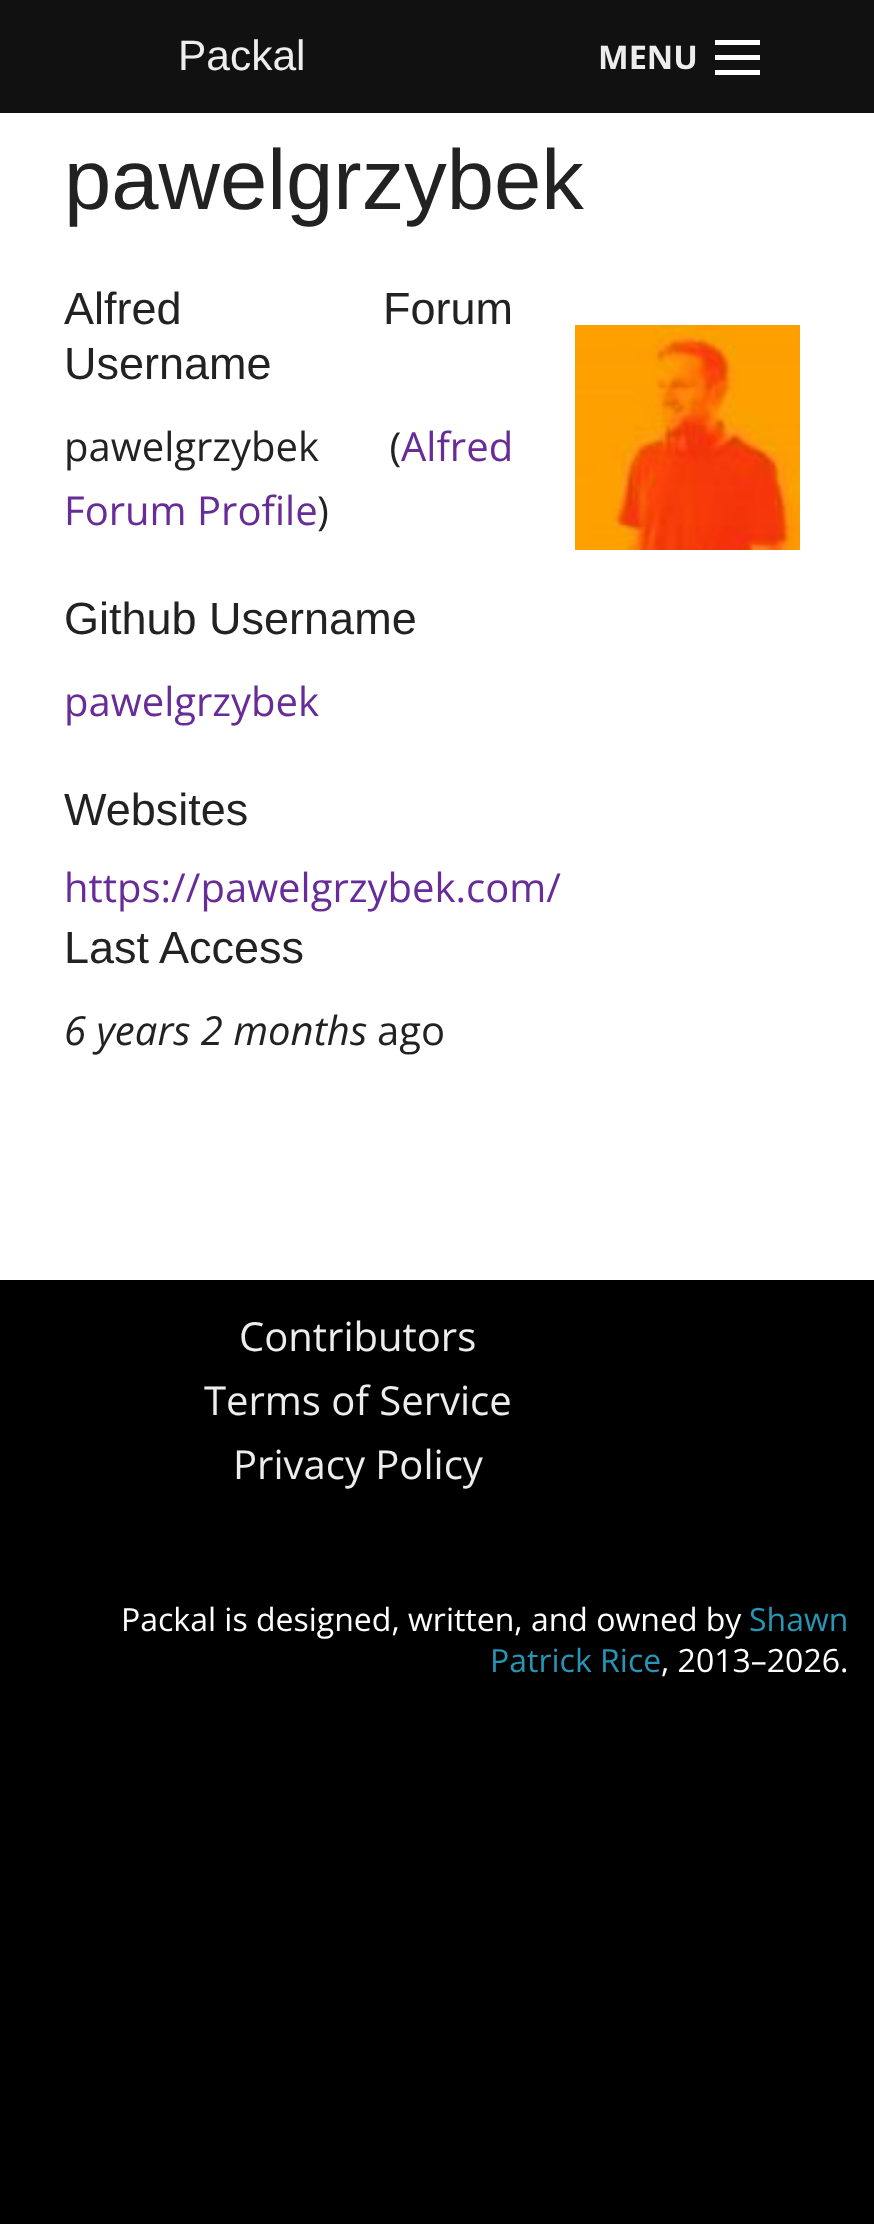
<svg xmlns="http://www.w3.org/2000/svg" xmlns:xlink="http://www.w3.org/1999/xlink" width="874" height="2224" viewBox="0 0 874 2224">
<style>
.cls-1{font:42.5px Liberation Sans;fill:#ededed}
.cls-2{font:bold 32.5px Open Sans;fill:#ededed}
.cls-3{font:85px Liberation Sans;fill:#222222}
.cls-4{font:45px Liberation Sans;fill:#222222}
.cls-5{font:40px Open Sans;fill:#222222}
.cls-6{font:40px Open Sans;fill:#672c98}
.cls-7{font:italic 40px Open Sans;fill:#222222}
.cls-8{font:40px Open Sans;fill:#ededed}
.cls-9{font:32px Open Sans;fill:#ffffff}
.cls-10{font:32px Open Sans;fill:#2795b6}
</style>
<rect width="100%" height="100%" fill="#000000"/>
<rect fill="#ffffff" x="0" y="113" width="874" height="1167"/>
<rect fill="#111111" x="0" y="0" width="874" height="113"/>
<rect fill="#ffffff" x="715" y="70" width="45" height="5"/>
<rect fill="#ffffff" x="715" y="55" width="45" height="5"/>
<rect fill="#ffffff" x="715" y="40" width="45" height="5"/>
<image xlink:href="image0.png" x="575" y="325" width="225" height="225"/>
<text class="cls-1" x="178" y="70">Packal</text>
<text class="cls-2" x="598" y="69">MENU</text>
<text class="cls-3" x="64" y="209">pawelgrzybek</text>
<text class="cls-4"><tspan x="64" y="324" word-spacing="189">Alfred Forum</tspan><tspan x="64" y="379">Username</tspan></text>
<text class="cls-5" x="64" y="461" word-spacing="60">pawelgrzybek (</text>
<text class="cls-6" x="401" y="461">Alfred</text>
<text class="cls-6" x="64" y="525">Forum Profile</text>
<text class="cls-5" x="317" y="525">)</text>
<text class="cls-4" x="64" y="634">Github Username</text>
<text class="cls-6" x="64" y="716">pawelgrzybek</text>
<text class="cls-4" x="64" y="825">Websites</text>
<text class="cls-6" x="64" y="902">https://pawelgrzybek.com/</text>
<text class="cls-4" x="64" y="963">Last Access</text>
<text class="cls-7" x="64" y="1045">6 years 2 months</text>
<text class="cls-5" x="377" y="1045">ago</text>
<text class="cls-8" x="239" y="1351">Contributors</text>
<text class="cls-8" x="204" y="1415">Terms of Service</text>
<text class="cls-8" x="233" y="1479">Privacy Policy</text>
<text class="cls-9" x="121" y="1631">Packal is designed, written, and owned by</text>
<text class="cls-10" x="749" y="1631">Shawn</text>
<text class="cls-10" x="490" y="1672">Patrick Rice</text>
<text class="cls-9" x="661" y="1672">, 2013–2026.</text>
</svg>
